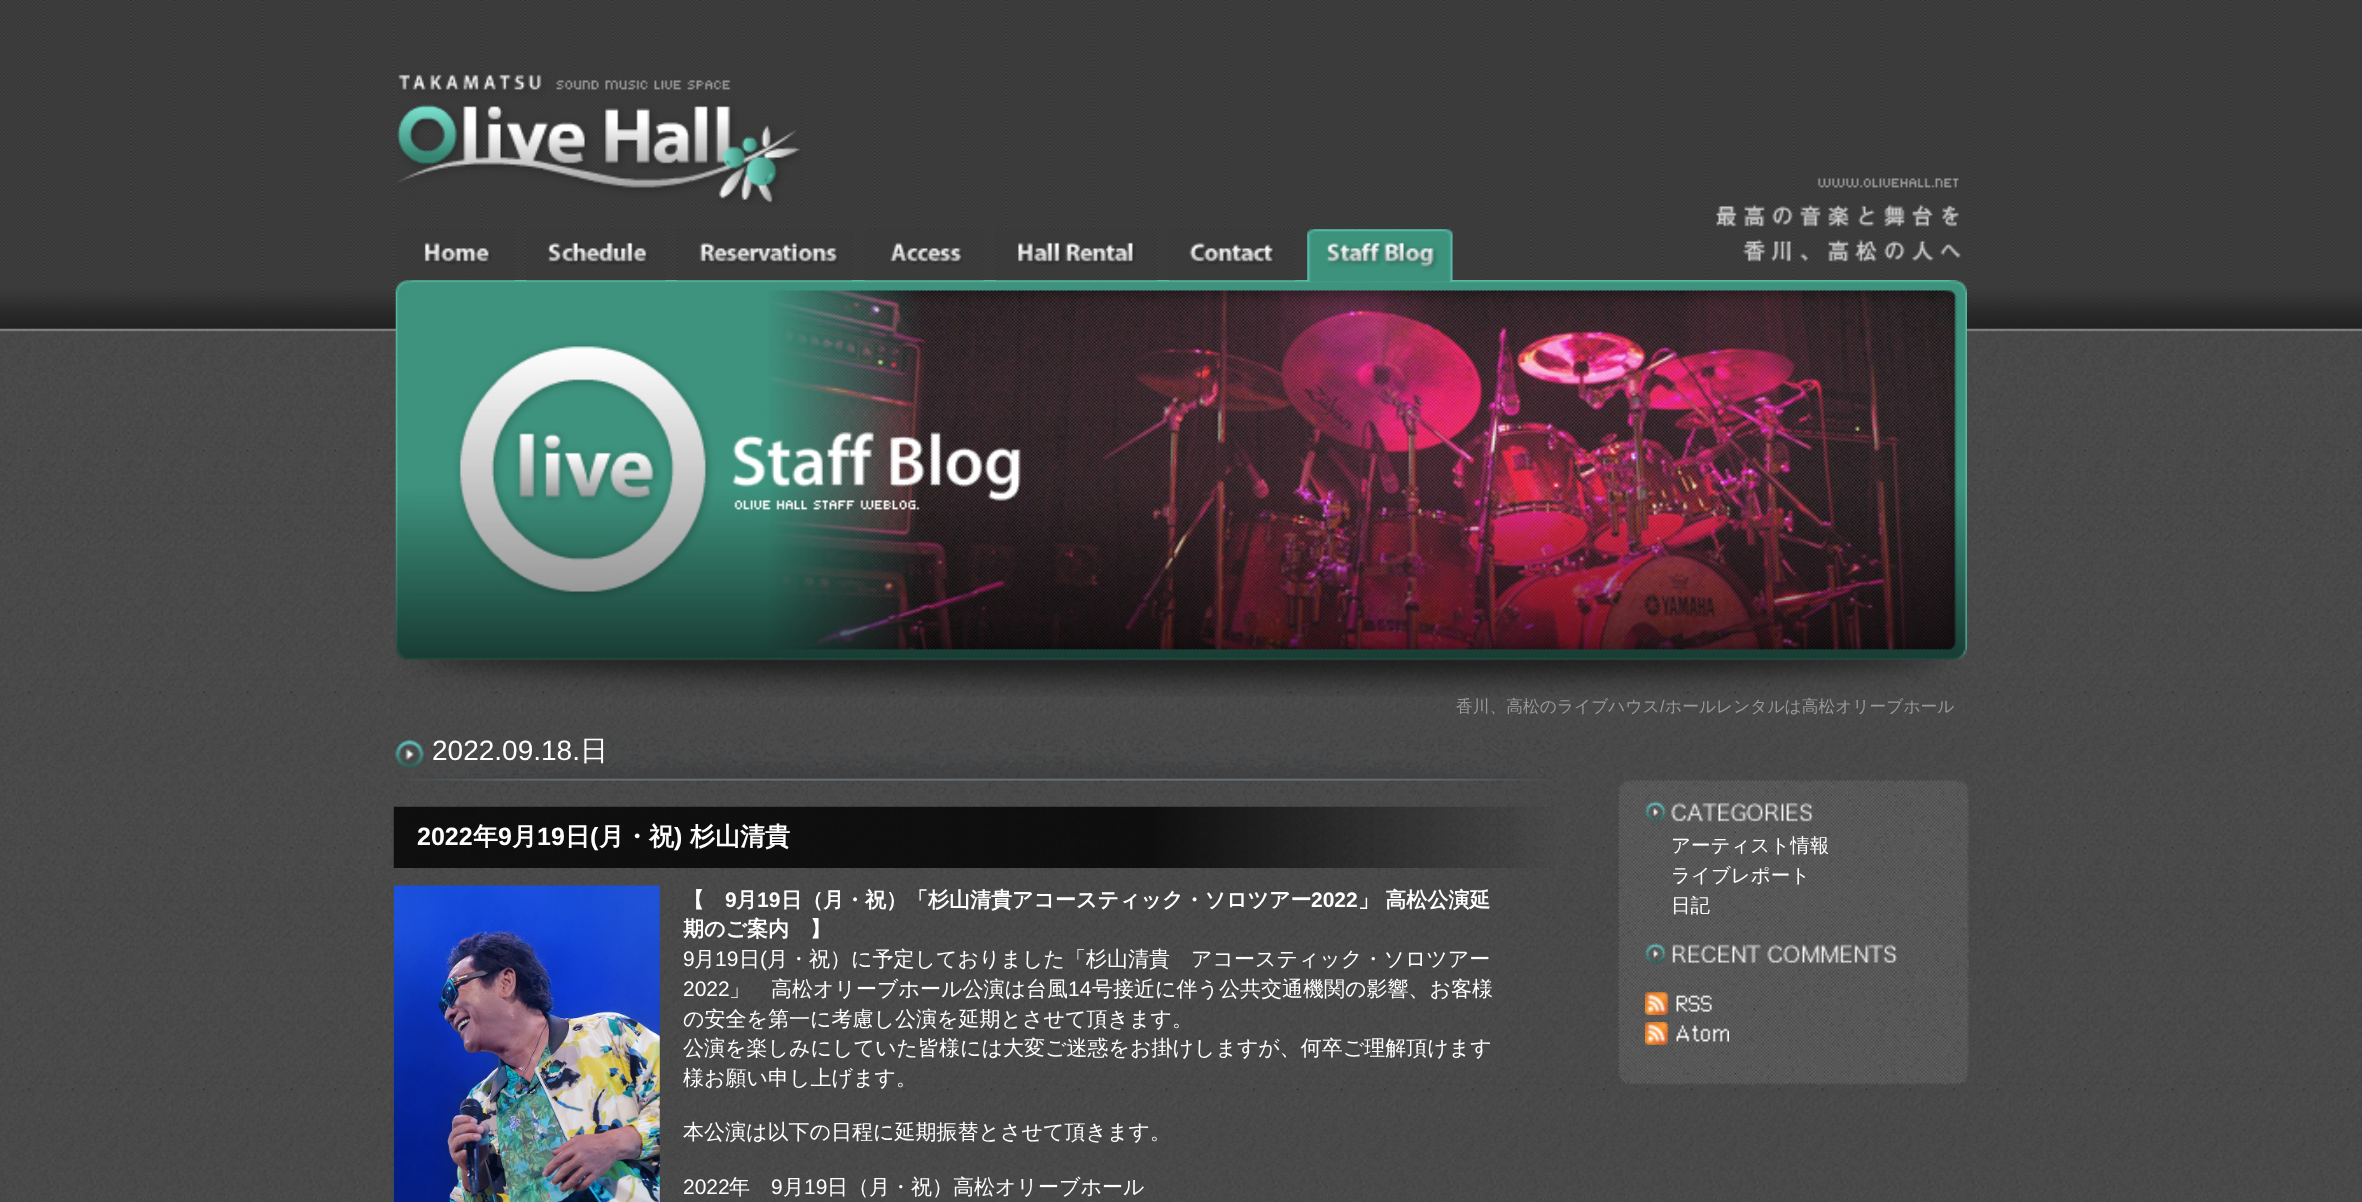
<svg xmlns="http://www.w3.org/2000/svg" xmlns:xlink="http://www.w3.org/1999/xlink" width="2362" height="1202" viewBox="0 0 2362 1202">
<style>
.cls-1{font:500 16.75px WenQuanYi Zen Hei;fill:#999999}
.cls-2{font:16.75px Liberation Sans;fill:#999999}
.cls-3{font:28px Liberation Sans;fill:#ffffff}
.cls-4{font:500 28px WenQuanYi Zen Hei;fill:#ffffff}
.cls-5{font:bold 25px Liberation Sans;fill:#ffffff}
.cls-6{font:bold 25px WenQuanYi Zen Hei;fill:#ffffff}
.cls-7{font:bold 21px WenQuanYi Zen Hei;fill:#ffffff}
.cls-8{font:bold 21px Liberation Sans;fill:#ffffff}
.cls-9{font:21px Liberation Sans;fill:#ffffff}
.cls-10{font:500 21px WenQuanYi Zen Hei;fill:#ffffff}
.cls-11{font:500 19.5px WenQuanYi Zen Hei;fill:#ffffff}
</style>
<rect width="100%" height="100%" fill="#ffffff"/>
<image xlink:href="image0.png" x="0" y="0" width="2362" height="1202"/>
<image xlink:href="image1.png" x="397" y="72" width="405" height="133"/>
<image xlink:href="image2.png" x="1716" y="178" width="245" height="84"/>
<image xlink:href="image10.png" x="395" y="280" width="1572" height="417"/>
<image xlink:href="image3.png" x="396" y="229" width="119" height="52"/>
<image xlink:href="image4.png" x="526" y="229" width="139" height="52"/>
<image xlink:href="image5.png" x="677" y="229" width="176" height="52"/>
<image xlink:href="image6.png" x="864" y="229" width="120" height="52"/>
<image xlink:href="image7.png" x="995" y="229" width="162" height="52"/>
<image xlink:href="image8.png" x="1169" y="229" width="126" height="52"/>
<image xlink:href="image9.png" x="1307" y="229" width="146" height="53"/>
<image xlink:href="image11.png" x="394" y="740" width="1162" height="53"/>
<image xlink:href="image12.png" x="394" y="738" width="31" height="32"/>
<image xlink:href="image13.png" x="393" y="806" width="1163" height="62"/>
<image xlink:href="image14.png" x="393" y="885" width="267" height="317"/>
<image xlink:href="image15.png" x="1618" y="780" width="351" height="17"/>
<image xlink:href="image16.png" x="1618" y="794" width="351" height="291"/>
<image xlink:href="image17.png" x="1645" y="801" width="168" height="22"/>
<image xlink:href="image18.png" x="1645" y="943" width="252" height="22"/>
<image xlink:href="image19.png" x="1645" y="992" width="67" height="23"/>
<image xlink:href="image20.png" x="1645" y="1022" width="84" height="23"/>
<text class="cls-1" x="1456" y="712">香川、高松のライブハウス</text>
<text class="cls-2" x="1660" y="712">/</text>
<text class="cls-1" x="1665" y="712">ホールレンタルは高松オリーブホール</text>
<text class="cls-3" x="432" y="760">2022.09.18.</text>
<text class="cls-4" x="580" y="760">日</text>
<text class="cls-5" x="417" y="845">2022</text>
<text class="cls-6" x="473" y="845">年</text>
<text class="cls-5" x="498" y="845">9</text>
<text class="cls-6" x="512" y="845">月</text>
<text class="cls-5" x="537" y="845">19</text>
<text class="cls-6" x="565" y="845">日</text>
<text class="cls-5" x="590" y="845">(</text>
<text class="cls-6" x="599" y="845">月・祝</text>
<text class="cls-5" x="674" y="845">)</text>
<text class="cls-6" x="690" y="845">杉山清貴</text>
<text class="cls-7" x="683" y="907">【</text>
<text class="cls-8" x="725" y="907">9</text>
<text class="cls-7" x="736" y="907">月</text>
<text class="cls-8" x="757" y="907">19</text>
<text class="cls-7" x="781" y="907">日（月・祝）「杉山清貴アコースティック・ソロツアー</text>
<text class="cls-8" x="1311" y="907">2022</text>
<text class="cls-7" x="1358" y="907">」 高松公演延</text>
<text class="cls-7" x="683" y="936">期のご案内　】</text>
<text class="cls-9" x="683" y="966">9</text>
<text class="cls-10" x="694" y="966">月</text>
<text class="cls-9" x="715" y="966">19</text>
<text class="cls-10" x="739" y="966">日</text>
<text class="cls-9" x="760" y="966">(</text>
<text class="cls-10" x="767" y="966">月・祝）に予定しておりました「杉山清貴　アコースティック・ソロツアー</text>
<text class="cls-9" x="683" y="996">2022</text>
<text class="cls-10" x="729" y="996">」　高松オリーブホール公演は台風</text>
<text class="cls-9" x="1068" y="996">14</text>
<text class="cls-10" x="1092" y="996">号接近に伴う公共交通機関の影響、お客様</text>
<text class="cls-10"><tspan x="683" y="1026">の安全を第一に考慮し公演を延期とさせて頂きます。</tspan><tspan x="683" y="1055">公演を楽しみにしていた皆様には大変ご迷惑をお掛けしますが、何卒ご理解頂けます</tspan><tspan x="683" y="1085">様お願い申し上げます。</tspan></text>
<text class="cls-10" x="683" y="1139">本公演は以下の日程に延期振替とさせて頂きます。</text>
<text class="cls-9" x="683" y="1194">2022</text>
<text class="cls-10" x="729" y="1194">年</text>
<text class="cls-9" x="771" y="1194">9</text>
<text class="cls-10" x="783" y="1194">月</text>
<text class="cls-9" x="804" y="1194">19</text>
<text class="cls-10" x="827" y="1194">日（月・祝）高松オリーブホール</text>
<text class="cls-11"><tspan x="1671" y="852">アーティスト情報</tspan><tspan x="1671" y="882">ライブレポート</tspan><tspan x="1671" y="912">日記</tspan></text>
</svg>
